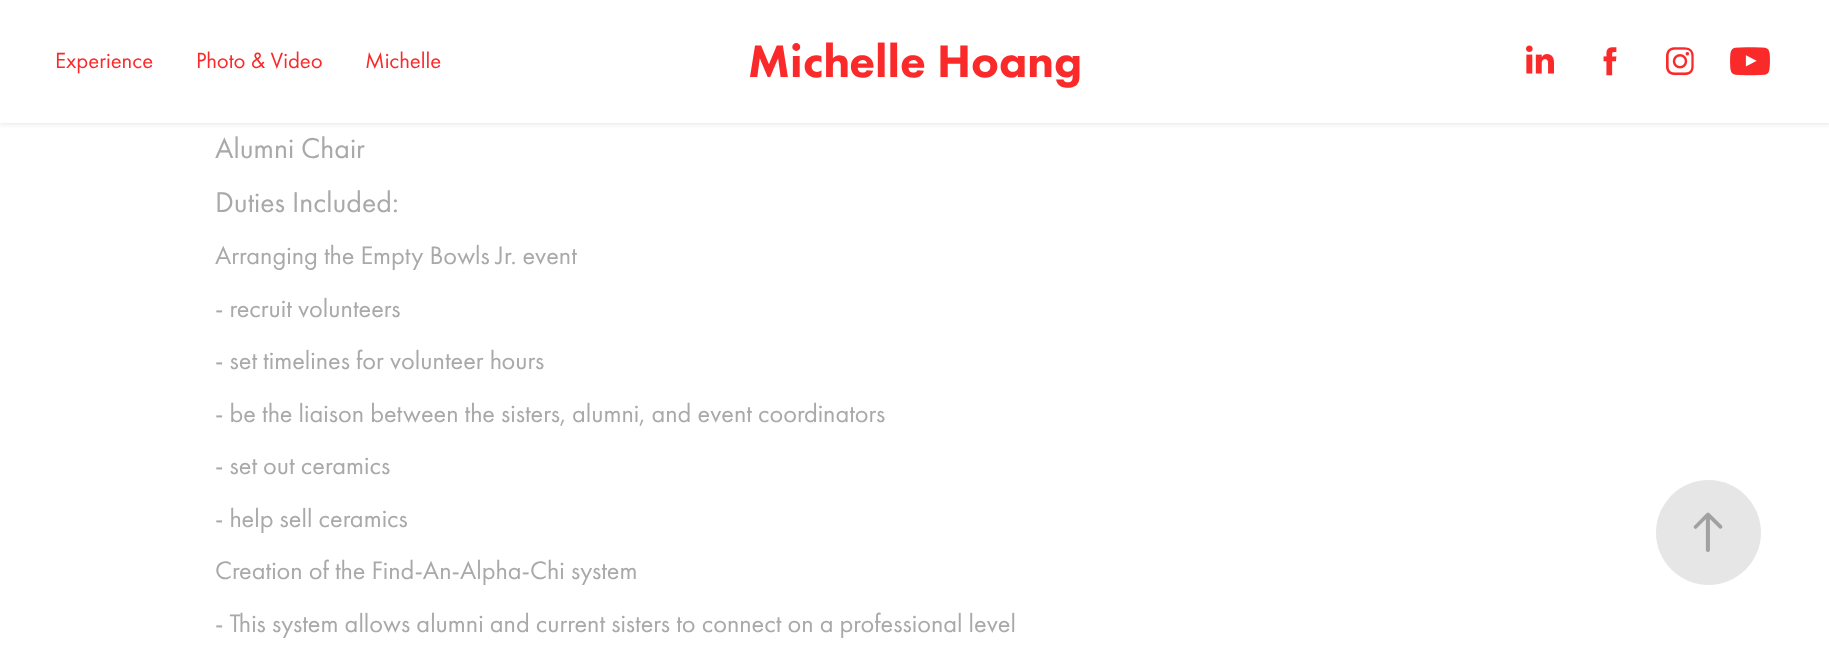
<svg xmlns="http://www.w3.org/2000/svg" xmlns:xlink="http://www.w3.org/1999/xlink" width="1829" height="654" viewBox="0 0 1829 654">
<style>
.cls-1{font:22.75px Futura PT;fill:#fa2a2a}
.cls-2{font:900 47.25px Futura PT;fill:#fa2a2a}
.cls-3{font:29.75px Futura PT;fill:#a9a9a9}
.cls-4{font:26.25px Futura PT;fill:#a9a9a9}
</style>
<rect width="100%" height="100%" fill="#ffffff"/>
<rect fill="#000000" fill-opacity="0.1" filter="blur(2.5px)" x="0" y="2" width="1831" height="122"/>
<rect fill="#ffffff" x="0" y="0" width="1829" height="123"/>
<image xlink:href="image0.png" x="1526" y="45" width="28" height="29"/>
<image xlink:href="image1.png" x="1603" y="47" width="14" height="29"/>
<image xlink:href="image2.png" x="1666" y="47" width="28" height="29"/>
<image xlink:href="image3.png" x="1730" y="47" width="40" height="29"/>
<circle fill="#e6e6e6" cx="1708.5" cy="532.5" r="52.5"/>
<image xlink:href="image4.png" x="1693" y="512" width="30" height="40"/>
<text class="cls-1" x="55" y="68">Experience</text>
<text class="cls-1" x="196" y="68">Photo &amp; Video</text>
<text class="cls-1" x="365" y="68">Michelle</text>
<text class="cls-2" x="748" y="77">Michelle Hoang</text>
<text class="cls-3"><tspan x="215" y="158">Alumni Chair</tspan><tspan x="215" y="212">Duties Included:</tspan></text>
<text class="cls-4" x="215" y="264">Arranging the Empty Bowls Jr. event</text>
<text class="cls-4"><tspan x="215" y="317">- recruit volunteers</tspan><tspan x="215" y="369">- set timelines for volunteer hours</tspan></text>
<text class="cls-4"><tspan x="215" y="422">- be the liaison between the sisters, alumni, and event coordinators</tspan><tspan x="215" y="474">- set out ceramics</tspan></text>
<text class="cls-4"><tspan x="215" y="527">- help sell ceramics</tspan><tspan x="215" y="579">Creation of the Find-An-Alpha-Chi system</tspan></text>
<text class="cls-4" x="215" y="632">- This system allows alumni and current sisters to connect on a professional level</text>
</svg>
